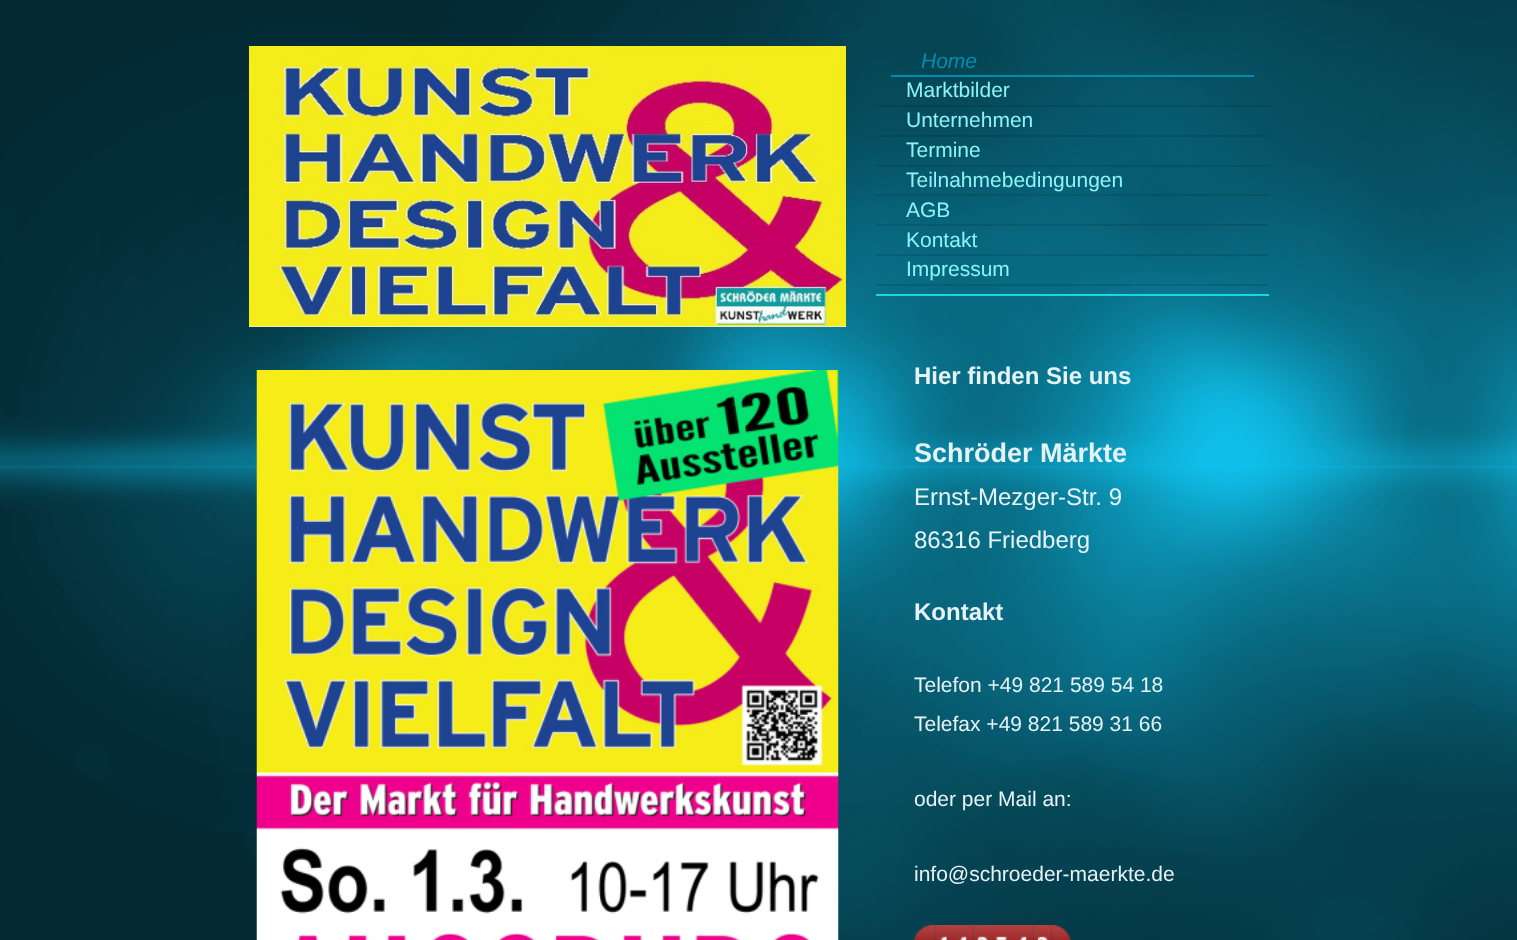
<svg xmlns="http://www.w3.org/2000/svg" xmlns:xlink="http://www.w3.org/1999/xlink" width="1517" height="940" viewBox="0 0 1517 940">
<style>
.cls-1{font:italic 21px Liberation Sans;fill:#048cae}
.cls-2{font:21px Liberation Sans;fill:#8cf3f7}
.cls-3{font:bold 24px Liberation Sans;fill:#e6f3f6}
.cls-4{font:bold 27px Liberation Sans;fill:#e6f3f6}
.cls-5{font:24px Liberation Sans;fill:#e6f3f6}
.cls-6{font:21px Liberation Sans;fill:#e6f3f6}
</style>
<rect width="100%" height="100%" fill="#11cefc"/>
<image xlink:href="image0.png" x="0" y="0" width="1517" height="940"/>
<image xlink:href="image1.png" x="249" y="46" width="597" height="1"/>
<rect fill="#eeeeee" x="249" y="326" width="597" height="1"/>
<image xlink:href="image2.png" x="249" y="47" width="597" height="280"/>
<image xlink:href="image3.png" x="256" y="370" width="583" height="570"/>
<rect fill="#048cae" x="891" y="75" width="363" height="2"/>
<rect fill="#000000" fill-opacity="0.1" x="876" y="105" width="393" height="2"/>
<rect fill="#000000" fill-opacity="0.1" x="876" y="135" width="393" height="2"/>
<rect fill="#000000" fill-opacity="0.1" x="876" y="165" width="393" height="2"/>
<rect fill="#000000" fill-opacity="0.1" x="876" y="194" width="393" height="2"/>
<rect fill="#000000" fill-opacity="0.1" x="876" y="224" width="393" height="2"/>
<rect fill="#000000" fill-opacity="0.1" x="876" y="254" width="393" height="2"/>
<rect fill="#000000" fill-opacity="0.1" x="876" y="284" width="393" height="2"/>
<rect fill="#1cd6de" x="876" y="294" width="393" height="2"/>
<image xlink:href="image4.png" x="913" y="925" width="22" height="15"/>
<image xlink:href="image5.png" x="934" y="925" width="20" height="15"/>
<image xlink:href="image6.png" x="954" y="925" width="20" height="15"/>
<image xlink:href="image7.png" x="973" y="925" width="20" height="15"/>
<image xlink:href="image8.png" x="993" y="925" width="21" height="15"/>
<image xlink:href="image9.png" x="1014" y="925" width="20" height="15"/>
<image xlink:href="image10.png" x="1033" y="925" width="19" height="15"/>
<image xlink:href="image11.png" x="1051" y="925" width="20" height="15"/>
<text class="cls-1" x="921" y="68">Home</text>
<text class="cls-2"><tspan x="906" y="97">Marktbilder</tspan><tspan x="906" y="127">Unternehmen</tspan><tspan x="906" y="157">Termine</tspan><tspan x="906" y="187">Teilnahmebedingungen</tspan><tspan x="906" y="217">AGB</tspan><tspan x="906" y="247">Kontakt</tspan><tspan x="906" y="276">Impressum</tspan></text>
<text class="cls-3" x="914" y="384">Hier finden Sie uns</text>
<text class="cls-4" x="914" y="462">Schröder Märkte</text>
<text class="cls-5"><tspan x="914" y="505">Ernst-Mezger-Str. 9</tspan><tspan x="914" y="548">86316 Friedberg</tspan></text>
<text class="cls-3" x="914" y="620">Kontakt</text>
<text class="cls-6"><tspan x="914" y="692">Telefon +49 821 589 54 18</tspan><tspan x="914" y="731">Telefax +49 821 589 31 66</tspan></text>
<text class="cls-6" x="914" y="806">oder per Mail an:</text>
<text class="cls-6" x="914" y="881">info@schroeder-maerkte.de</text>
</svg>
